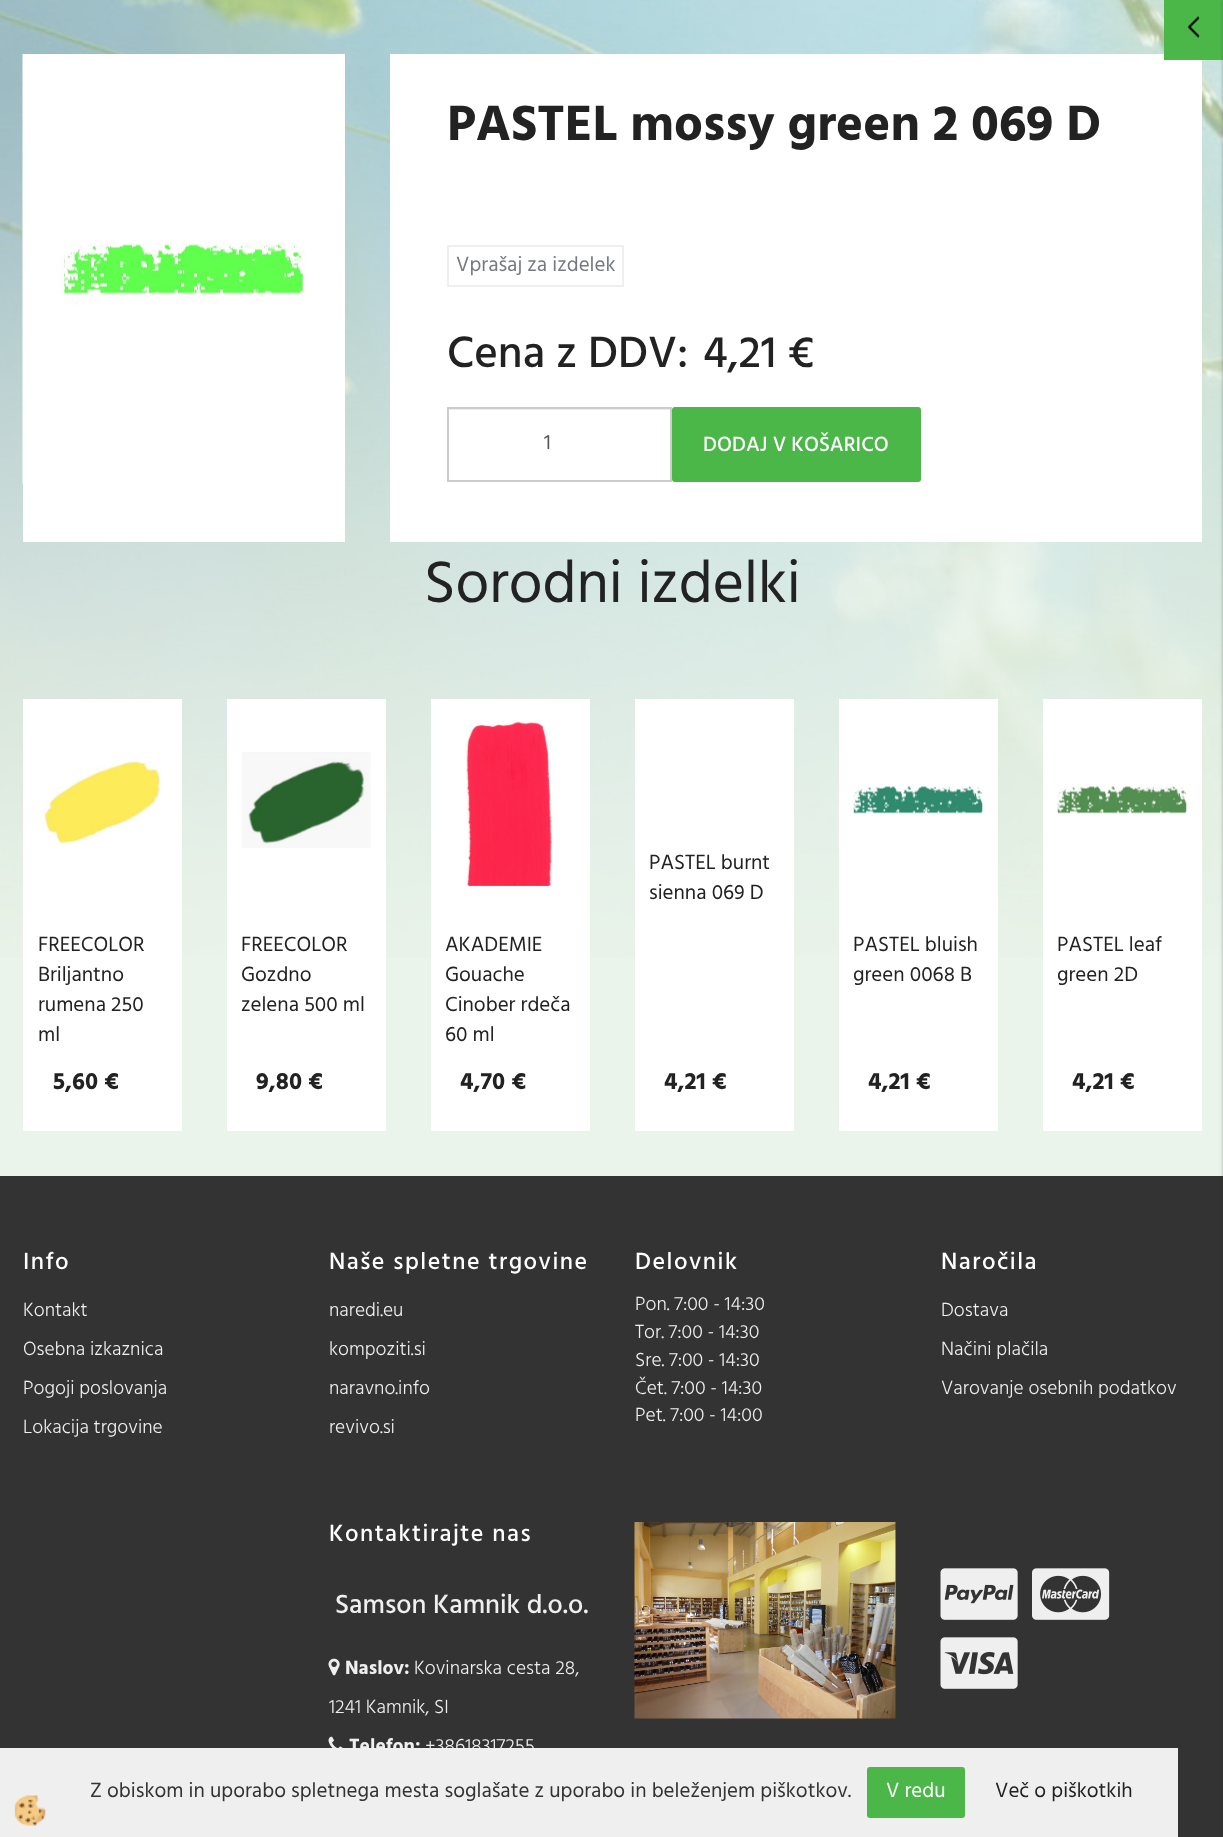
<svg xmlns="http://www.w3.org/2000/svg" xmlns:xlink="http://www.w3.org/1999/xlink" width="1223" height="1837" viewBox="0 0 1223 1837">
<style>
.cls-1{font:bold 51px Hind;fill:#222222}
.cls-2{font:21px Hind;fill:#767a7f}
.cls-3{font:500 45px Hind;fill:#222222}
.cls-4{font:21px Hind;fill:#555555}
.cls-5{font:500 21px Hind;fill:#ffffff}
.cls-6{font:60px Hind;fill:#222222}
.cls-7{font:21px Hind;fill:#222222}
.cls-8{font:bold 24px Hind;fill:#222222}
.cls-9{font:500 24px Hind;letter-spacing:1.5px;fill:#ffffff}
.cls-10{font:300 19.5px Hind;fill:#efefef}
.cls-11{font:500 27px Hind;fill:#efefef}
.cls-12{font:bold 19.5px Hind;fill:#efefef}
.cls-13{font:21px Hind;fill:#333333}
.cls-14{font:21px Hind;fill:#ffffff}
</style>
<rect width="100%" height="100%" fill="#eaf4eb"/>
<image xlink:href="image0.png" x="0" y="0" width="1223" height="957"/>
<rect fill="#ffffff" x="23" y="54" width="322" height="488"/>
<image xlink:href="image1.png" x="22" y="54" width="284" height="430"/>
<rect fill="#ffffff" x="390" y="54" width="812" height="488"/>
<rect fill="none" stroke="#efefef" stroke-width="2" x="448" y="246" width="175" height="40"/>
<rect fill="#ececec" x="449" y="409" width="222" height="1"/>
<rect fill="none" stroke="#cccccc" stroke-width="2" x="448" y="408" width="223" height="73"/>
<rect fill="#4bb749" stroke="#4bb749" stroke-width="2" x="673" y="408" width="247" height="73" rx="2"/>
<rect fill="#ffffff" x="23" y="699" width="159" height="432"/>
<image xlink:href="image2.png" x="44" y="761" width="117" height="86"/>
<rect fill="#ffffff" x="227" y="699" width="159" height="432"/>
<image xlink:href="image3.png" x="242" y="752" width="129" height="96"/>
<rect fill="#ffffff" x="431" y="699" width="159" height="432"/>
<image xlink:href="image4.png" x="466" y="720" width="86" height="166"/>
<rect fill="#ffffff" x="635" y="699" width="159" height="432"/>
<rect fill="#ffffff" x="839" y="699" width="159" height="432"/>
<image xlink:href="image5.png" x="853" y="786" width="130" height="28"/>
<rect fill="#ffffff" x="1043" y="699" width="159" height="432"/>
<image xlink:href="image6.png" x="1057" y="786" width="130" height="28"/>
<rect fill="#4bb749" x="1164" y="0" width="59" height="60"/>
<image xlink:href="image7.png" x="1188" y="16" width="12" height="22"/>
<rect fill="#333333" x="0" y="1176" width="1223" height="661"/>
<rect fill="#222222" fill-opacity="0.5" filter="blur(2px)" x="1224" y="0" width="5" height="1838"/>
<image xlink:href="image8.png" x="328" y="1658" width="12" height="18"/>
<image xlink:href="image9.png" x="328" y="1736" width="15" height="12"/>
<image xlink:href="image10.png" x="634" y="1522" width="262" height="197"/>
<image xlink:href="image11.png" x="940" y="1568" width="78" height="52"/>
<image xlink:href="image12.png" x="1032" y="1568" width="78" height="52"/>
<image xlink:href="image13.png" x="940" y="1637" width="78" height="52"/>
<rect fill="#efefef" x="0" y="1748" width="1178" height="89"/>
<rect fill="#4bb749" stroke="#4bb749" stroke-width="2" x="868" y="1768" width="96" height="49" rx="2"/>
<image xlink:href="image14.png" x="14" y="1795" width="32" height="31"/>
<text class="cls-1" x="447" y="140">PASTEL mossy green 2 069 D</text>
<text class="cls-2" x="456" y="271">Vprašaj za izdelek</text>
<text class="cls-3" x="447" y="367">Cena z DDV:</text>
<text class="cls-3" x="703" y="367">4,21 €</text>
<text class="cls-4" x="544" y="449">1</text>
<text class="cls-5" x="703" y="451">DODAJ V KOŠARICO</text>
<text class="cls-6" x="424" y="602">Sorodni izdelki</text>
<text class="cls-7"><tspan x="38" y="951">FREECOLOR</tspan><tspan x="38" y="981">Briljantno</tspan><tspan x="38" y="1011">rumena 250</tspan><tspan x="38" y="1041">ml</tspan></text>
<text class="cls-8" x="53" y="1089">5,60 €</text>
<text class="cls-7"><tspan x="241" y="951">FREECOLOR</tspan><tspan x="241" y="981">Gozdno</tspan><tspan x="241" y="1011">zelena 500 ml</tspan></text>
<text class="cls-8" x="256" y="1089">9,80 €</text>
<text class="cls-7"><tspan x="445" y="951">AKADEMIE</tspan><tspan x="445" y="981">Gouache</tspan><tspan x="445" y="1011">Cinober rdeča</tspan><tspan x="445" y="1041">60 ml</tspan></text>
<text class="cls-8" x="460" y="1089">4,70 €</text>
<text class="cls-7"><tspan x="649" y="869">PASTEL burnt</tspan><tspan x="649" y="899">sienna 069 D</tspan></text>
<text class="cls-8" x="664" y="1089">4,21 €</text>
<text class="cls-7"><tspan x="853" y="951">PASTEL bluish</tspan><tspan x="853" y="981">green 0068 B</tspan></text>
<text class="cls-8" x="868" y="1089">4,21 €</text>
<text class="cls-7"><tspan x="1057" y="951">PASTEL leaf</tspan><tspan x="1057" y="981">green 2D</tspan></text>
<text class="cls-8" x="1072" y="1089">4,21 €</text>
<text class="cls-9" x="23" y="1269">Info</text>
<text class="cls-10" x="23" y="1316">Kontakt</text>
<text class="cls-10" x="23" y="1355">Osebna izkaznica</text>
<text class="cls-10" x="23" y="1394">Pogoji poslovanja</text>
<text class="cls-10" x="23" y="1433">Lokacija trgovine</text>
<text class="cls-9" x="329" y="1269">Naše spletne trgovine</text>
<text class="cls-10" x="329" y="1316">naredi.eu</text>
<text class="cls-10" x="329" y="1355">kompoziti.si</text>
<text class="cls-10" x="329" y="1394">naravno.info</text>
<text class="cls-10" x="329" y="1433">revivo.si</text>
<text class="cls-9" x="635" y="1269">Delovnik</text>
<text class="cls-10"><tspan x="635" y="1310">Pon. 7:00 - 14:30</tspan><tspan x="635" y="1338">Tor. 7:00 - 14:30</tspan><tspan x="635" y="1366">Sre. 7:00 - 14:30</tspan><tspan x="635" y="1394">Čet. 7:00 - 14:30</tspan><tspan x="635" y="1421">Pet. 7:00 - 14:00</tspan></text>
<text class="cls-9" x="941" y="1269">Naročila</text>
<text class="cls-10" x="941" y="1316">Dostava</text>
<text class="cls-10" x="941" y="1355">Načini plačila</text>
<text class="cls-10" x="941" y="1394">Varovanje osebnih podatkov</text>
<text class="cls-9" x="329" y="1541">Kontaktirajte nas</text>
<text class="cls-11" x="335" y="1613">Samson Kamnik d.o.o.</text>
<text class="cls-12" x="345" y="1674">Naslov:</text>
<text class="cls-10" x="414" y="1674">Kovinarska cesta 28,</text>
<text class="cls-10" x="329" y="1713">1241 Kamnik, SI</text>
<text class="cls-12" x="349" y="1752">Telefon:</text>
<text class="cls-10" x="425" y="1752">+38618317255</text>
<text class="cls-13" x="90" y="1797">Z obiskom in uporabo spletnega mesta soglašate z uporabo in beleženjem piškotkov.</text>
<text class="cls-14" x="886" y="1797">V redu</text>
<text class="cls-7" x="995" y="1797">Več o piškotkih</text>
</svg>
